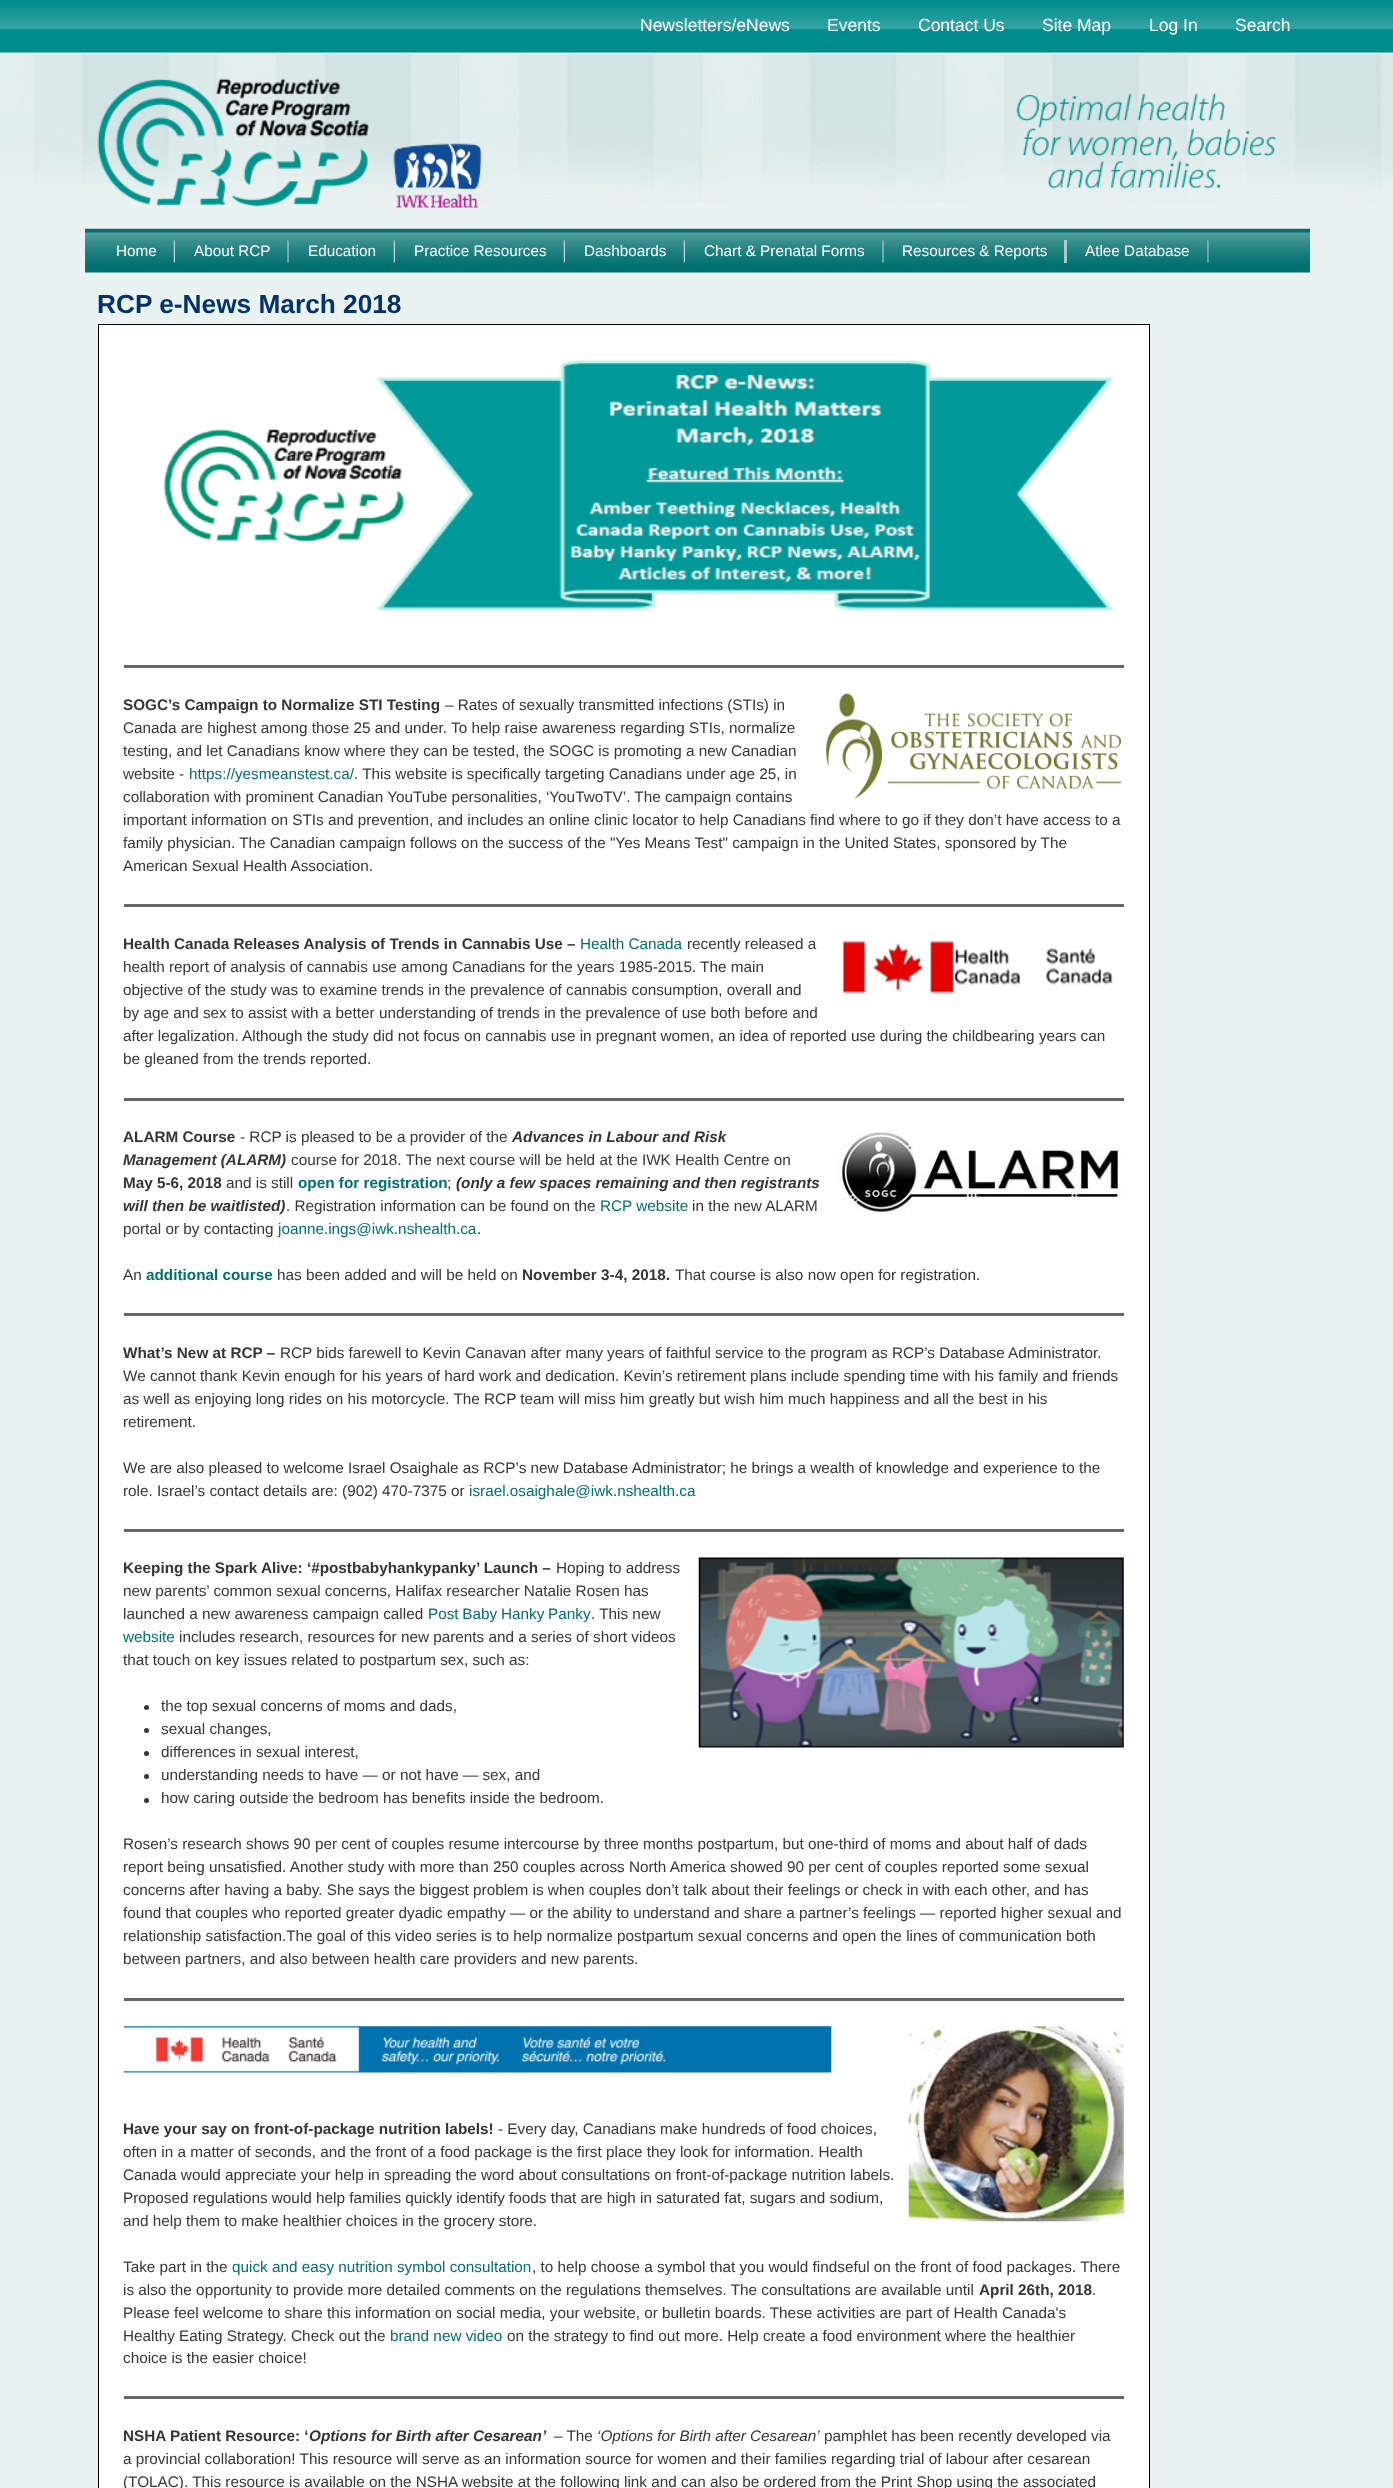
<svg xmlns="http://www.w3.org/2000/svg" xmlns:xlink="http://www.w3.org/1999/xlink" width="1393" height="2488" viewBox="0 0 1393 2488">
<style>
.cls-1{font:17.5px Liberation Sans;fill:#ffffff}
.cls-2{font:15.3px Liberation Sans;fill:#ffffff}
.cls-3{font:bold 26.25px Liberation Sans;fill:#03336b}
.cls-4{font:bold 15.3px Liberation Sans;fill:#363636}
.cls-5{font:15.3px Liberation Sans;fill:#363636}
.cls-6{font:15.3px Liberation Sans;fill:#00706e}
.cls-7{font:italic bold 15.3px Liberation Sans;fill:#363636}
.cls-8{font:bold 15.3px Liberation Sans;fill:#00706e}
.cls-9{font:italic 15.3px Liberation Sans;fill:#363636}
</style>
<rect width="100%" height="100%" fill="#ebf3f2"/>
<image xlink:href="image0.png" x="0" y="53" width="1393" height="149"/>
<image xlink:href="image1.png" x="0" y="0" width="1393" height="54"/>
<image xlink:href="image2.png" x="1016" y="93" width="261" height="96"/>
<image xlink:href="image3.png" x="97" y="78" width="272" height="129"/>
<image xlink:href="image4.png" x="393" y="143" width="89" height="65"/>
<image xlink:href="image5.png" x="85" y="228" width="1225" height="45"/>
<image xlink:href="image6.png" x="173" y="240" width="2" height="23"/>
<image xlink:href="image7.png" x="287" y="240" width="2" height="23"/>
<image xlink:href="image6.png" x="393" y="240" width="2" height="23"/>
<image xlink:href="image6.png" x="563" y="240" width="2" height="23"/>
<image xlink:href="image6.png" x="683" y="240" width="2" height="23"/>
<image xlink:href="image8.png" x="882" y="240" width="2" height="23"/>
<rect fill="#bed5d9" fill-opacity="0.87" x="1064" y="240" width="3" height="23"/>
<image xlink:href="image9.png" x="1207" y="240" width="2" height="23"/>
<rect fill="#ffffff" stroke="#000000" x="98.5" y="324.5" width="1051" height="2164"/>
<image xlink:href="image10.png" x="163" y="359" width="950" height="253"/>
<rect fill="#666666" x="124" y="665" width="1000" height="3"/>
<image xlink:href="image11.png" x="826" y="693" width="295" height="106"/>
<rect fill="#666666" x="124" y="904" width="1000" height="3"/>
<image xlink:href="image12.png" x="841" y="940" width="272" height="54"/>
<rect fill="#666666" x="124" y="1098" width="1000" height="3"/>
<image xlink:href="image13.png" x="836" y="1130" width="287" height="83"/>
<rect fill="#666666" x="124" y="1313" width="1000" height="3"/>
<rect fill="#666666" x="124" y="1529" width="1000" height="3"/>
<image xlink:href="image14.png" x="698" y="1557" width="426" height="191"/>
<circle fill="#363636" cx="146.5" cy="1707.5" r="2.5"/>
<circle fill="#363636" cx="146.5" cy="1730.5" r="2.5"/>
<circle fill="#363636" cx="146.5" cy="1753.5" r="2.5"/>
<circle fill="#363636" cx="146.5" cy="1776.5" r="2.5"/>
<circle fill="#363636" cx="146.5" cy="1800.5" r="2.5"/>
<rect fill="#666666" x="124" y="1998" width="1000" height="3"/>
<image xlink:href="image15.png" x="123" y="2026" width="709" height="47"/>
<image xlink:href="image16.png" x="908" y="2026" width="216" height="196"/>
<rect fill="#666666" x="124" y="2396" width="1000" height="3"/>
<text class="cls-1" x="640" y="31">Newsletters/eNews</text>
<text class="cls-1" x="827" y="31">Events</text>
<text class="cls-1" x="918" y="31">Contact Us</text>
<text class="cls-1" x="1042" y="31">Site Map</text>
<text class="cls-1" x="1149" y="31">Log In</text>
<text class="cls-1" x="1235" y="31">Search</text>
<text class="cls-2" x="116" y="256">Home</text>
<text class="cls-2" x="194" y="256">About RCP</text>
<text class="cls-2" x="308" y="256">Education</text>
<text class="cls-2" x="414" y="256">Practice Resources</text>
<text class="cls-2" x="584" y="256">Dashboards</text>
<text class="cls-2" x="704" y="256">Chart &amp; Prenatal Forms</text>
<text class="cls-2" x="902" y="256">Resources &amp; Reports</text>
<text class="cls-2" x="1085" y="256">Atlee Database</text>
<text class="cls-3" x="97" y="313">RCP e-News March 2018</text>
<text class="cls-4" x="123" y="710">SOGC’s Campaign to Normalize STI Testing</text>
<text class="cls-5" x="445" y="710">– Rates of sexually transmitted infections (STIs) in</text>
<text class="cls-5"><tspan x="123" y="733">Canada are highest among those 25 and under. To help raise awareness regarding STIs, normalize</tspan><tspan x="123" y="756">testing, and let Canadians know where they can be tested, the SOGC is promoting a new Canadian</tspan><tspan x="123" y="779">website -</tspan></text>
<text class="cls-6" x="189" y="779">https://yesmeanstest.ca/</text>
<text class="cls-5" x="354" y="779">. This website is specifically targeting Canadians under age 25, in</text>
<text class="cls-5"><tspan x="123" y="802">collaboration with prominent Canadian YouTube personalities, ‘YouTwoTV’. The campaign contains</tspan><tspan x="123" y="825">important information on STIs and prevention, and includes an online clinic locator to help Canadians find where to go if they don’t have access to a</tspan><tspan x="123" y="848">family physician. The Canadian campaign follows on the success of the "Yes Means Test" campaign in the United States, sponsored by The</tspan><tspan x="123" y="871">American Sexual Health Association.</tspan></text>
<text class="cls-4" x="123" y="949">Health Canada Releases Analysis of Trends in Cannabis Use –</text>
<text class="cls-6" x="580" y="949">Health Canada</text>
<text class="cls-5" x="687" y="949">recently released a</text>
<text class="cls-5"><tspan x="123" y="972">health report of analysis of cannabis use among Canadians for the years 1985-2015. The main</tspan><tspan x="123" y="995">objective of the study was to examine trends in the prevalence of cannabis consumption, overall and</tspan><tspan x="123" y="1018">by age and sex to assist with a better understanding of trends in the prevalence of use both before and</tspan><tspan x="123" y="1041">after legalization. Although the study did not focus on cannabis use in pregnant women, an idea of reported use during the childbearing years can</tspan><tspan x="123" y="1064">be gleaned from the trends reported.</tspan></text>
<text class="cls-4" x="123" y="1142">ALARM Course</text>
<text class="cls-5" x="240" y="1142">- RCP is pleased to be a provider of the</text>
<text class="cls-7" x="512" y="1142">Advances in Labour and Risk</text>
<text class="cls-7" x="123" y="1165">Management (ALARM)</text>
<text class="cls-5" x="291" y="1165">course for 2018. The next course will be held at the IWK Health Centre on</text>
<text class="cls-4" x="123" y="1188">May 5-6, 2018</text>
<text class="cls-5" x="226" y="1188">and is still</text>
<text class="cls-8" x="298" y="1188">open for registration</text>
<text class="cls-5" x="447" y="1188">;</text>
<text class="cls-7" x="456" y="1188">(only a few spaces remaining and then registrants</text>
<text class="cls-7" x="123" y="1211">will then be waitlisted)</text>
<text class="cls-5" x="286" y="1211">. Registration information can be found on the</text>
<text class="cls-6" x="600" y="1211">RCP website</text>
<text class="cls-5" x="692" y="1211">in the new ALARM</text>
<text class="cls-5" x="123" y="1234">portal or by contacting</text>
<text class="cls-6" x="278" y="1234">joanne.ings@iwk.nshealth.ca</text>
<text class="cls-5" x="477" y="1234">.</text>
<text class="cls-5" x="123" y="1280">An</text>
<text class="cls-8" x="146" y="1280">additional course</text>
<text class="cls-5" x="277" y="1280">has been added and will be held on</text>
<text class="cls-4" x="522" y="1280">November 3-4, 2018.</text>
<text class="cls-5" x="675" y="1280">That course is also now open for registration.</text>
<text class="cls-4" x="123" y="1358">What’s New at RCP –</text>
<text class="cls-5" x="280" y="1358">RCP bids farewell to Kevin Canavan after many years of faithful service to the program as RCP’s Database Administrator.</text>
<text class="cls-5"><tspan x="123" y="1381">We cannot thank Kevin enough for his years of hard work and dedication. Kevin’s retirement plans include spending time with his family and friends</tspan><tspan x="123" y="1404">as well as enjoying long rides on his motorcycle. The RCP team will miss him greatly but wish him much happiness and all the best in his</tspan><tspan x="123" y="1427">retirement.</tspan></text>
<text class="cls-5"><tspan x="123" y="1473">We are also pleased to welcome Israel Osaighale as RCP’s new Database Administrator; he brings a wealth of knowledge and experience to the</tspan><tspan x="123" y="1496">role. Israel’s contact details are: (902) 470-7375 or</tspan></text>
<text class="cls-6" x="469" y="1496">israel.osaighale@iwk.nshealth.ca</text>
<text class="cls-4" x="123" y="1573">Keeping the Spark Alive: ‘#postbabyhankypanky’ Launch –</text>
<text class="cls-5" x="556" y="1573">Hoping to address</text>
<text class="cls-5"><tspan x="123" y="1596">new parents’ common sexual concerns, Halifax researcher Natalie Rosen has</tspan><tspan x="123" y="1619">launched a new awareness campaign called</tspan></text>
<text class="cls-6" x="428" y="1619" word-spacing="-0.5">Post Baby Hanky Panky</text>
<text class="cls-5" x="591" y="1619">. This new</text>
<text class="cls-6" x="123" y="1642">website</text>
<text class="cls-5" x="179" y="1642">includes research, resources for new parents and a series of short videos</text>
<text class="cls-5" x="123" y="1665">that touch on key issues related to postpartum sex, such as:</text>
<text class="cls-5"><tspan x="161" y="1711">the top sexual concerns of moms and dads,</tspan><tspan x="161" y="1734">sexual changes,</tspan><tspan x="161" y="1757">differences in sexual interest,</tspan><tspan x="161" y="1780">understanding needs to have — or not have — sex, and</tspan><tspan x="161" y="1803">how caring outside the bedroom has benefits inside the bedroom.</tspan></text>
<text class="cls-5"><tspan x="123" y="1849">Rosen’s research shows 90 per cent of couples resume intercourse by three months postpartum, but one-third of moms and about half of dads</tspan><tspan x="123" y="1872">report being unsatisfied. Another study with more than 250 couples across North America showed 90 per cent of couples reported some sexual</tspan><tspan x="123" y="1895">concerns after having a baby. She says the biggest problem is when couples don’t talk about their feelings or check in with each other, and has</tspan><tspan x="123" y="1918">found that couples who reported greater dyadic empathy — or the ability to understand and share a partner’s feelings — reported higher sexual and</tspan><tspan x="123" y="1941">relationship satisfaction.The goal of this video series is to help normalize postpartum sexual concerns and open the lines of communication both</tspan><tspan x="123" y="1964">between partners, and also between health care providers and new parents.</tspan></text>
<text class="cls-4" x="123" y="2134">Have your say on front-of-package nutrition labels!</text>
<text class="cls-5" x="498" y="2134">- Every day, Canadians make hundreds of food choices,</text>
<text class="cls-5"><tspan x="123" y="2157">often in a matter of seconds, and the front of a food package is the first place they look for information. Health</tspan><tspan x="123" y="2180">Canada would appreciate your help in spreading the word about consultations on front-of-package nutrition labels.</tspan><tspan x="123" y="2203">Proposed regulations would help families quickly identify foods that are high in saturated fat, sugars and sodium,</tspan><tspan x="123" y="2226">and help them to make healthier choices in the grocery store.</tspan></text>
<text class="cls-5" x="123" y="2272">Take part in the</text>
<text class="cls-6" x="232" y="2272">quick and easy nutrition symbol consultation</text>
<text class="cls-5" x="532" y="2272">, to help choose a symbol that you would findseful on the front of food packages. There</text>
<text class="cls-5" x="123" y="2295">is also the opportunity to provide more detailed comments on the regulations themselves. The consultations are available until</text>
<text class="cls-4" x="979" y="2295">April 26th, 2018</text>
<text class="cls-5" x="1092" y="2295">.</text>
<text class="cls-5"><tspan x="123" y="2318">Please feel welcome to share this information on social media, your website, or bulletin boards. These activities are part of Health Canada's</tspan><tspan x="123" y="2341">Healthy Eating Strategy. Check out the</tspan></text>
<text class="cls-6" x="390" y="2341">brand new video</text>
<text class="cls-5" x="507" y="2341">on the strategy to find out more. Help create a food environment where the healthier</text>
<text class="cls-5" x="123" y="2363">choice is the easier choice!</text>
<text class="cls-4" x="123" y="2441">NSHA Patient Resource: ‘</text>
<text class="cls-7" x="309" y="2441">Options for Birth after Cesarean’</text>
<text class="cls-5" x="554" y="2441">– The</text>
<text class="cls-9" x="597" y="2441">‘Options for Birth after Cesarean’</text>
<text class="cls-5" x="824" y="2441">pamphlet has been recently developed via</text>
<text class="cls-5"><tspan x="123" y="2464">a provincial collaboration! This resource will serve as an information source for women and their families regarding trial of labour after cesarean</tspan><tspan x="123" y="2487">(TOLAC). This resource is available on the NSHA website at the following link and can also be ordered from the Print Shop using the associated</tspan></text>
</svg>
